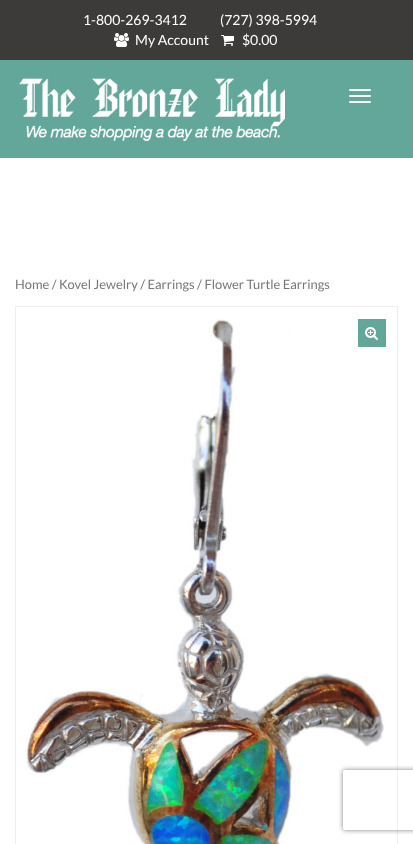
<svg xmlns="http://www.w3.org/2000/svg" xmlns:xlink="http://www.w3.org/1999/xlink" width="413" height="844" viewBox="0 0 413 844">
<style>
.cls-1{font:14px Lato;fill:#ffffff}
.cls-2{font:12.9px Lato;fill:#777777}
</style>
<defs>
<clipPath id="clip1"><path d="M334 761H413V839H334ZM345 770H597C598 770 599 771 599 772V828C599 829 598 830 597 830H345C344 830 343 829 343 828V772C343 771 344 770 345 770Z" clip-rule="evenodd"/></clipPath>
</defs>
<rect width="100%" height="100%" fill="#ffffff"/>
<rect fill="#3d3b3a" x="0" y="0" width="413" height="60"/>
<image xlink:href="image0.png" x="114" y="33" width="15" height="14"/>
<image xlink:href="image1.png" x="221" y="35" width="13" height="11"/>
<rect fill="#63a69a" x="0" y="60" width="413" height="98"/>
<image xlink:href="image2.png" x="19" y="78" width="266" height="63"/>
<rect fill="#ffffff" x="349" y="89" width="22" height="2" rx="1"/>
<rect fill="#ffffff" x="349" y="95" width="22" height="2" rx="1"/>
<rect fill="#ffffff" x="349" y="101" width="22" height="2" rx="1"/>
<rect fill="none" stroke="#eeeeee" x="15.5" y="306.5" width="382" height="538"/>
<image xlink:href="image3.png" x="26" y="319" width="359" height="525"/>
<rect fill="#63a69a" x="358" y="319" width="28" height="28"/>
<image xlink:href="image4.png" x="365" y="327" width="13" height="13"/>
<g clip-path="url(#clip1)">
<rect fill="#808080" filter="blur(2.5px)" x="343" y="770" width="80" height="60" rx="2"/>
</g>
<text class="cls-1" x="83" y="25">1-800-269-3412</text>
<text class="cls-1" x="220" y="25">(727) 398-5994</text>
<text class="cls-1" x="135" y="45">My Account</text>
<text class="cls-1" x="242" y="45">$0.00</text>
<text class="cls-2" x="15" y="289">Home / Kovel Jewelry / Earrings / Flower Turtle Earrings</text>
</svg>
